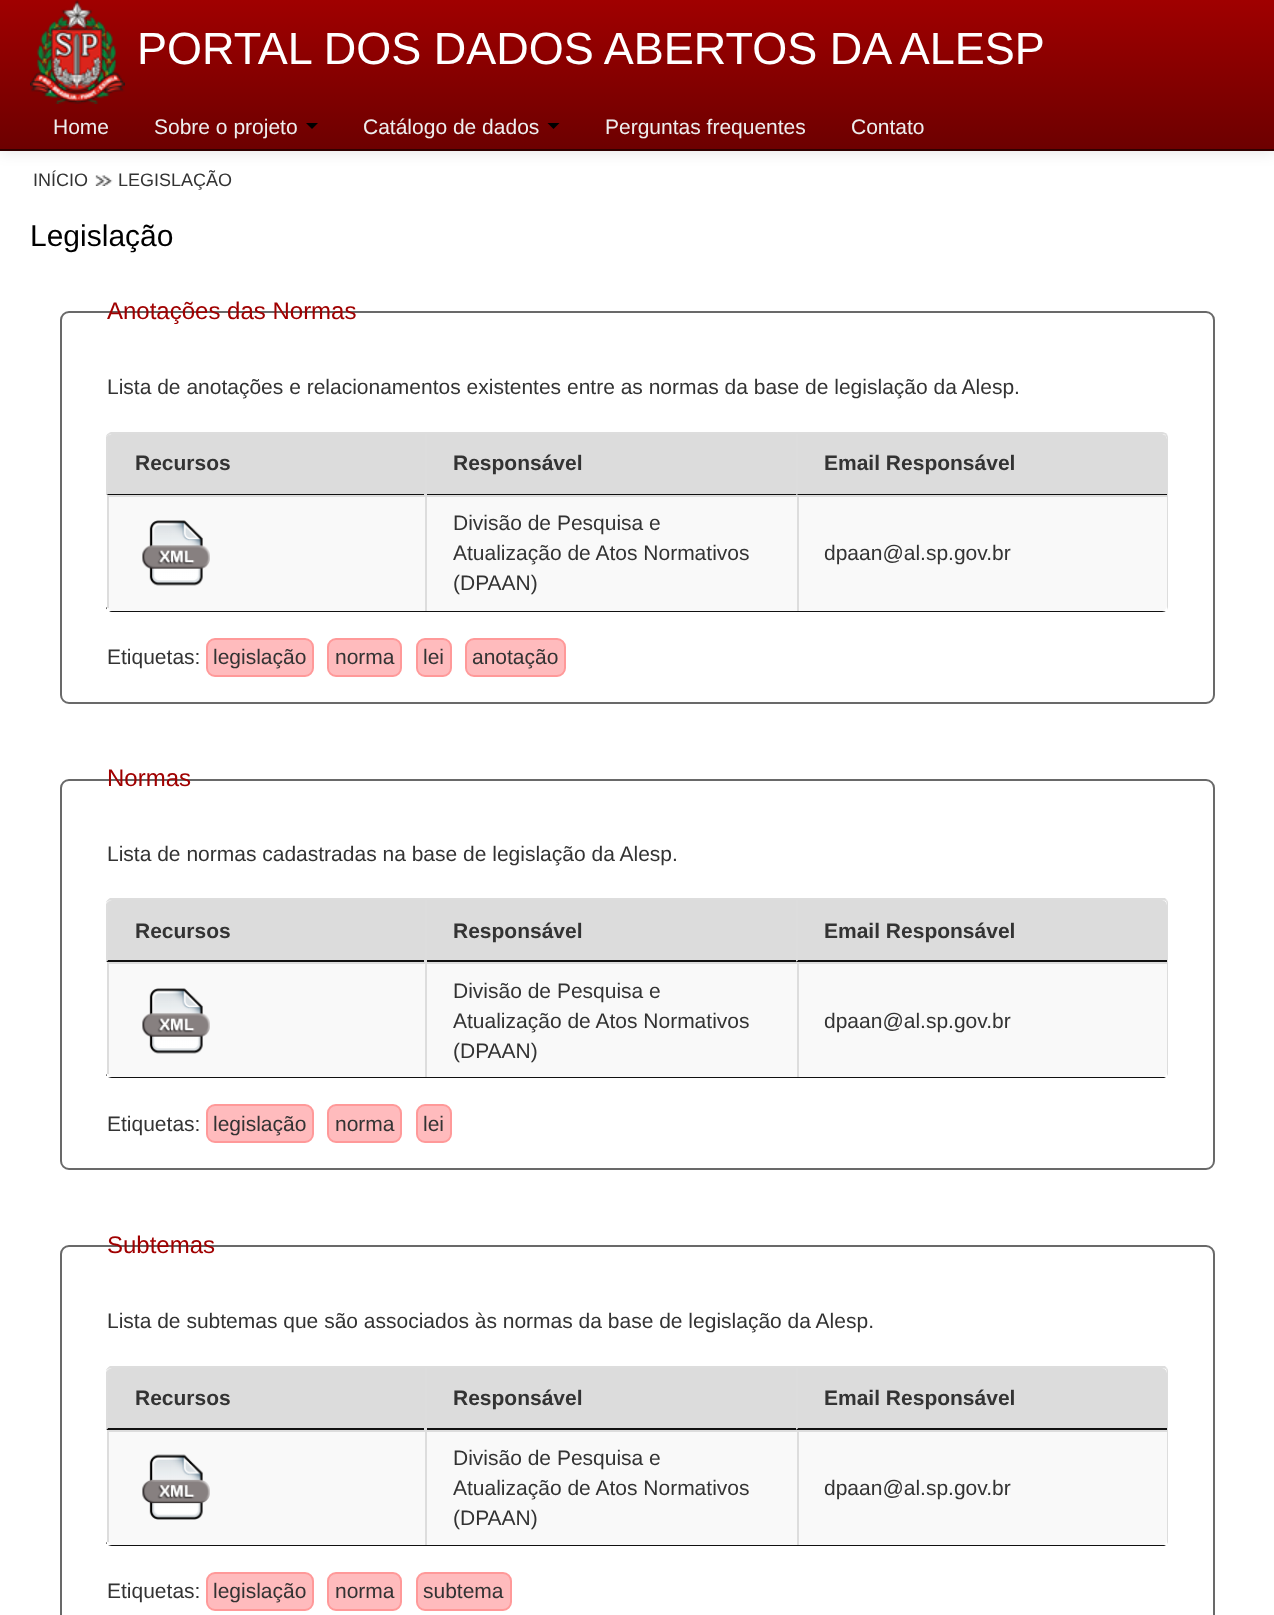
<svg xmlns="http://www.w3.org/2000/svg" xmlns:xlink="http://www.w3.org/1999/xlink" width="1274" height="1615" viewBox="0 0 1274 1615">
<style>
.cls-1{font:45px Liberation Sans;fill:#ffffff}
.cls-2{font:21px Liberation Sans;fill:#eeeeee}
.cls-3{font:18px Liberation Sans;fill:#333333}
.cls-4{font:30px Liberation Sans;fill:#000000}
.cls-5{font:24px Liberation Sans;fill:#a00000}
.cls-6{font:21px Liberation Sans;fill:#333333}
.cls-7{font:bold 21px Liberation Sans;fill:#333333}
</style>
<defs>
<linearGradient id="g1" gradientUnits="userSpaceOnUse" x1="638" y1="0" x2="638" y2="149"><stop offset="0" stop-color="#a00000"/><stop offset="1" stop-color="#6d0000"/></linearGradient>
</defs>
<rect width="100%" height="100%" fill="#ffffff"/>
<image xlink:href="image1.png" x="95" y="175" width="18" height="11"/>
<rect fill="#000000" fill-opacity="0.1" filter="blur(7.5px)" x="0" y="2" width="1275" height="150"/>
<rect fill="url(#g1)" x="0" y="0" width="1274" height="149"/>
<rect fill="#300000" x="0" y="149" width="1274" height="2"/>
<image xlink:href="image0.png" x="30" y="0" width="95" height="104"/>
<path fill="#000000" d="M306 123H318L312 129Z"/>
<path fill="#000000" d="M547.5 123H559.5L553.5 129Z"/>
<rect fill="none" stroke="#696969" stroke-width="2" x="61" y="312" width="1153" height="391" rx="8"/>
<path fill="#dddddd" d="M112 432C110 432 106 434 106 437C107 435 110 434 112 434H1162C1163 434 1165 434 1165 435L1167 434C1166 433 1164 432 1162 432Z"/>
<path fill="#dddddd" d="M1165 609C1166 608 1167 607 1167 606V438L1165 435L1167 434L1168 437V607L1167 610Z"/>
<path fill="#111111" d="M106 607C107 609 110 610 112 610H1162C1163 610 1165 610 1165 609L1167 610C1166 611 1164 612 1162 612H112C110 612 107 610 106 608Z"/>
<path fill="#dcdcdc" d="M113 434H425V495H107V440C107 436.5 109.5 434 113 434Z"/>
<path fill="#111111" d="M424 495V494H108L106 495Z"/>
<path fill="#dddddd" d="M112 434C110 434 107 435 106 437V495L108 494V440C108 436 110 434 112 434Z"/>
<rect fill="#dcdcdc" x="427" y="434" width="369" height="60"/>
<rect fill="#111111" x="425" y="494" width="372" height="1"/>
<rect fill="#dddddd" x="425" y="434" width="2" height="61"/>
<path fill="#dcdcdc" d="M797 434H1161C1164.5 434 1167 436.5 1167 440V495H797Z"/>
<path fill="#111111" d="M1167 495V494H798L796 495Z"/>
<path fill="#dddddd" d="M798 434H796V495L798 494Z"/>
<rect fill="#ffffff" x="107" y="606" width="1060" height="5"/>
<path fill="#f9f9f9" d="M107 495H425V611H113C109.5 611 107 608.5 107 605Z"/>
<rect fill="#dddddd" x="107" y="495" width="690" height="2"/>
<rect fill="#dddddd" x="107" y="495" width="2" height="113"/>
<image xlink:href="image2.png" x="142" y="520" width="68" height="66"/>
<rect fill="#f9f9f9" x="427" y="497" width="370" height="114"/>
<rect fill="#dddddd" x="425" y="495" width="2" height="116"/>
<path fill="#f9f9f9" d="M797 495H1167V605C1167 608.5 1164.5 611 1161 611H797Z"/>
<rect fill="#dddddd" x="797" y="495" width="370" height="2"/>
<rect fill="#dddddd" x="797" y="495" width="2" height="116"/>
<rect fill="#ffbbbd" stroke="#ff9999" stroke-width="2" x="207" y="639" width="106" height="37" rx="8"/>
<rect fill="#ffbbbd" stroke="#ff9999" stroke-width="2" x="328" y="639" width="73" height="37" rx="8"/>
<rect fill="#ffbbbd" stroke="#ff9999" stroke-width="2" x="417" y="639" width="34" height="37" rx="8"/>
<rect fill="#ffbbbd" stroke="#ff9999" stroke-width="2" x="466" y="639" width="99" height="37" rx="8"/>
<rect fill="none" stroke="#696969" stroke-width="2" x="61" y="780" width="1153" height="389" rx="8"/>
<path fill="#dddddd" d="M112 900C110 900 107 901 106 903C106 901 108 899 110 898H1165L1167 900L1166 901C1165 901 1164 900 1162 900Z"/>
<path fill="#dddddd" d="M1166 1076L1167 1073V904L1166 901L1167 900C1168 901 1168 903 1168 904V1072C1168 1074 1168 1076 1166 1076Z"/>
<path fill="#111111" d="M106 1074C107 1076 110 1077 112 1077H1162C1164 1077 1165 1076 1166 1076C1166 1078 1164 1078 1162 1078H112C110 1078 107 1077 106 1075Z"/>
<path fill="#dcdcdc" d="M113 900H425V962H107V906C107 902.5 109.5 900 113 900Z"/>
<path fill="#111111" d="M424 962V960H108L106 962Z"/>
<path fill="#dddddd" d="M112 900C110 900 108 903 108 906V960L106 962V904C107 902 110 900 112 900Z"/>
<rect fill="#dcdcdc" x="427" y="900" width="369" height="60"/>
<rect fill="#111111" x="425" y="960" width="372" height="2"/>
<rect fill="#dddddd" x="425" y="900" width="2" height="62"/>
<path fill="#dcdcdc" d="M797 900H1161C1164.5 900 1167 902.5 1167 906V962H797Z"/>
<path fill="#111111" d="M1167 962V960H798L796 962Z"/>
<path fill="#dddddd" d="M796 962L798 960V900H796Z"/>
<rect fill="#ffffff" x="107" y="1073" width="1060" height="4"/>
<path fill="#f9f9f9" d="M107 962H425V1077H113C109.5 1077 107 1074.5 107 1071Z"/>
<rect fill="#dddddd" x="107" y="962" width="690" height="2"/>
<rect fill="#dddddd" x="107" y="962" width="2" height="112"/>
<image xlink:href="image2.png" x="142" y="988" width="68" height="66"/>
<rect fill="#f9f9f9" x="427" y="964" width="370" height="113"/>
<rect fill="#dddddd" x="425" y="962" width="2" height="115"/>
<path fill="#f9f9f9" d="M797 962H1167V1071C1167 1074.5 1164.5 1077 1161 1077H797Z"/>
<rect fill="#dddddd" x="797" y="962" width="370" height="2"/>
<rect fill="#dddddd" x="797" y="962" width="2" height="115"/>
<rect fill="#ffbbbd" stroke="#ff9999" stroke-width="2" x="207" y="1105" width="106" height="37" rx="8"/>
<rect fill="#ffbbbd" stroke="#ff9999" stroke-width="2" x="328" y="1105" width="73" height="37" rx="8"/>
<rect fill="#ffbbbd" stroke="#ff9999" stroke-width="2" x="417" y="1105" width="34" height="37" rx="8"/>
<rect fill="none" stroke="#696969" stroke-width="2" x="61" y="1246" width="1153" height="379" rx="8"/>
<path fill="#dddddd" d="M112 1368C110 1368 107 1369 106 1371C106 1369 108 1367 110 1366H1165L1167 1368L1166 1369C1165 1369 1164 1368 1162 1368Z"/>
<path fill="#dddddd" d="M1166 1544L1167 1541V1372L1166 1369L1167 1368C1168 1369 1168 1371 1168 1372V1540C1168 1542 1168 1544 1166 1544Z"/>
<path fill="#111111" d="M106 1542C107 1544 110 1545 112 1545H1162C1164 1545 1165 1544 1166 1544C1166 1546 1164 1546 1162 1546H112C110 1546 107 1545 106 1543Z"/>
<path fill="#dcdcdc" d="M113 1368H425V1430H107V1374C107 1370.5 109.5 1368 113 1368Z"/>
<path fill="#111111" d="M424 1430V1428H108L106 1430Z"/>
<path fill="#dddddd" d="M112 1368C110 1368 108 1371 108 1374V1428L106 1430V1372C107 1370 110 1368 112 1368Z"/>
<rect fill="#dcdcdc" x="427" y="1368" width="369" height="60"/>
<rect fill="#111111" x="425" y="1428" width="372" height="2"/>
<rect fill="#dddddd" x="425" y="1368" width="2" height="62"/>
<path fill="#dcdcdc" d="M797 1368H1161C1164.5 1368 1167 1370.5 1167 1374V1430H797Z"/>
<path fill="#111111" d="M1167 1430V1428H798L796 1430Z"/>
<path fill="#dddddd" d="M796 1430L798 1428V1368H796Z"/>
<rect fill="#ffffff" x="107" y="1541" width="1060" height="4"/>
<path fill="#f9f9f9" d="M107 1430H425V1545H113C109.5 1545 107 1542.5 107 1539Z"/>
<rect fill="#dddddd" x="107" y="1430" width="690" height="2"/>
<rect fill="#dddddd" x="107" y="1430" width="2" height="112"/>
<image xlink:href="image3.png" x="142" y="1454" width="68" height="66"/>
<rect fill="#f9f9f9" x="427" y="1432" width="370" height="113"/>
<rect fill="#dddddd" x="425" y="1430" width="2" height="115"/>
<path fill="#f9f9f9" d="M797 1430H1167V1539C1167 1542.5 1164.5 1545 1161 1545H797Z"/>
<rect fill="#dddddd" x="797" y="1430" width="370" height="2"/>
<rect fill="#dddddd" x="797" y="1430" width="2" height="115"/>
<rect fill="#ffbbbd" stroke="#ff9999" stroke-width="2" x="207" y="1573" width="106" height="37" rx="8"/>
<rect fill="#ffbbbd" stroke="#ff9999" stroke-width="2" x="328" y="1573" width="73" height="37" rx="8"/>
<rect fill="#ffbbbd" stroke="#ff9999" stroke-width="2" x="417" y="1573" width="94" height="37" rx="8"/>
<text class="cls-1" x="137" y="64">PORTAL DOS DADOS ABERTOS DA ALESP</text>
<text class="cls-2" x="53" y="134">Home</text>
<text class="cls-2" x="154" y="134">Sobre o projeto</text>
<text class="cls-2" x="363" y="134">Catálogo de dados</text>
<text class="cls-2" x="605" y="134">Perguntas frequentes</text>
<text class="cls-2" x="851" y="134">Contato</text>
<text class="cls-3" x="33" y="186">INÍCIO</text>
<text class="cls-3" x="118" y="186">LEGISLAÇÃO</text>
<text class="cls-4" x="30" y="246">Legislação</text>
<text class="cls-5" x="107" y="319">Anotações das Normas</text>
<text class="cls-6" x="107" y="394">Lista de anotações e relacionamentos existentes entre as normas da base de legislação da Alesp.</text>
<text class="cls-7" x="135" y="470">Recursos</text>
<text class="cls-7" x="453" y="470">Responsável</text>
<text class="cls-7" x="824" y="470">Email Responsável</text>
<text class="cls-6"><tspan x="453" y="530">Divisão de Pesquisa e</tspan><tspan x="453" y="560">Atualização de Atos Normativos</tspan><tspan x="453" y="590">(DPAAN)</tspan></text>
<text class="cls-6" x="824" y="560">dpaan@al.sp.gov.br</text>
<text class="cls-6" x="107" y="664">Etiquetas:</text>
<text class="cls-6" x="213" y="664">legislação</text>
<text class="cls-6" x="335" y="664">norma</text>
<text class="cls-6" x="423" y="664">lei</text>
<text class="cls-6" x="472" y="664">anotação</text>
<text class="cls-5" x="107" y="786">Normas</text>
<text class="cls-6" x="107" y="861">Lista de normas cadastradas na base de legislação da Alesp.</text>
<text class="cls-7" x="135" y="938">Recursos</text>
<text class="cls-7" x="453" y="938">Responsável</text>
<text class="cls-7" x="824" y="938">Email Responsável</text>
<text class="cls-6"><tspan x="453" y="998">Divisão de Pesquisa e</tspan><tspan x="453" y="1028">Atualização de Atos Normativos</tspan><tspan x="453" y="1058">(DPAAN)</tspan></text>
<text class="cls-6" x="824" y="1028">dpaan@al.sp.gov.br</text>
<text class="cls-6" x="107" y="1131">Etiquetas:</text>
<text class="cls-6" x="213" y="1131">legislação</text>
<text class="cls-6" x="335" y="1131">norma</text>
<text class="cls-6" x="423" y="1131">lei</text>
<text class="cls-5" x="107" y="1253">Subtemas</text>
<text class="cls-6" x="107" y="1328">Lista de subtemas que são associados às normas da base de legislação da Alesp.</text>
<text class="cls-7" x="135" y="1405">Recursos</text>
<text class="cls-7" x="453" y="1405">Responsável</text>
<text class="cls-7" x="824" y="1405">Email Responsável</text>
<text class="cls-6"><tspan x="453" y="1465">Divisão de Pesquisa e</tspan><tspan x="453" y="1495">Atualização de Atos Normativos</tspan><tspan x="453" y="1525">(DPAAN)</tspan></text>
<text class="cls-6" x="824" y="1495">dpaan@al.sp.gov.br</text>
<text class="cls-6" x="107" y="1598">Etiquetas:</text>
<text class="cls-6" x="213" y="1598">legislação</text>
<text class="cls-6" x="335" y="1598">norma</text>
<text class="cls-6" x="423" y="1598">subtema</text>
</svg>
